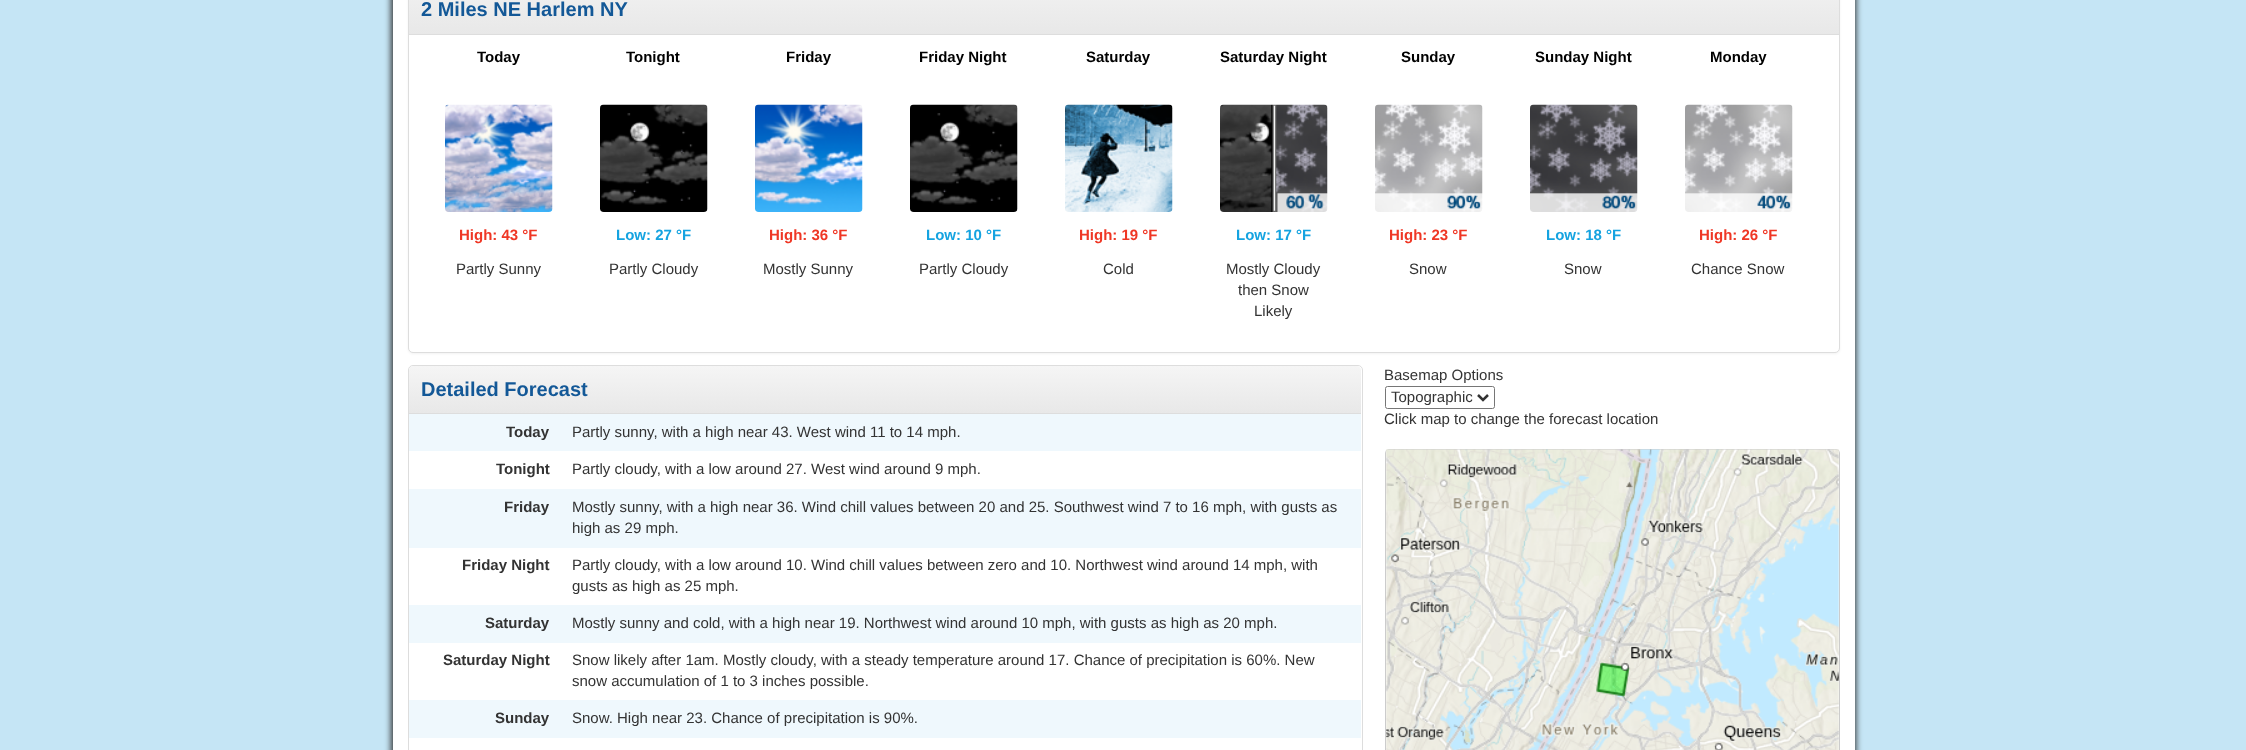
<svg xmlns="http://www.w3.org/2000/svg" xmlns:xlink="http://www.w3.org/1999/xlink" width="2246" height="750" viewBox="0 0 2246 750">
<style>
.cls-1{font:bold 20px Liberation Sans;fill:#135897}
.cls-2{font:bold 15px Liberation Sans;fill:#000000}
.cls-3{font:bold 15px Liberation Sans;fill:#ef3725}
.cls-4{font:15px Liberation Sans;fill:#333333}
.cls-5{font:bold 15px Liberation Sans;fill:#15a3e0}
.cls-6{font:bold 15px Liberation Sans;fill:#333333}
</style>
<defs>
<linearGradient id="g1" gradientUnits="userSpaceOnUse" x1="1124" y1="-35" x2="1124" y2="34"><stop offset="0" stop-color="#f5f5f5"/><stop offset="1" stop-color="#e8e8e8"/></linearGradient>
<linearGradient id="g2" gradientUnits="userSpaceOnUse" x1="885" y1="366" x2="885" y2="413"><stop offset="0" stop-color="#f5f5f5"/><stop offset="1" stop-color="#e8e8e8"/></linearGradient>
</defs>
<rect width="100%" height="100%" fill="#c5e5f5"/>
<rect fill="#333333" filter="blur(3px)" x="391" y="-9" width="1465" height="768"/>
<rect fill="#ffffff" x="393" y="0" width="1462" height="750"/>
<rect fill="#000000" fill-opacity="0.05" filter="blur(1px)" x="408" y="-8" width="1432" height="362" rx="5"/>
<rect fill="#ffffff" stroke="#dddddd" x="408.5" y="-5.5" width="1431" height="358" rx="4.5"/>
<rect fill="url(#g1)" x="409" y="0" width="1430" height="34"/>
<rect fill="#dddddd" x="409" y="34" width="1430" height="1"/>
<image xlink:href="image0.png" x="445" y="104" width="108" height="108"/>
<image xlink:href="image1.png" x="600" y="104" width="108" height="108"/>
<image xlink:href="image2.png" x="755" y="104" width="108" height="108"/>
<image xlink:href="image3.png" x="910" y="104" width="108" height="108"/>
<image xlink:href="image4.png" x="1065" y="104" width="108" height="108"/>
<image xlink:href="image5.png" x="1220" y="104" width="108" height="108"/>
<image xlink:href="image6.png" x="1375" y="104" width="108" height="108"/>
<image xlink:href="image7.png" x="1530" y="104" width="108" height="108"/>
<image xlink:href="image8.png" x="1685" y="104" width="108" height="108"/>
<rect fill="none" stroke="#dddddd" x="408.5" y="365.5" width="954" height="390" rx="4.5"/>
<path fill="url(#g2)" d="M413 366H1357C1359 366 1361 368 1361 370V413H409V370C409 368 411 366 413 366Z"/>
<rect fill="#dddddd" x="409" y="413" width="952" height="1"/>
<rect fill="#eff8fd" x="409" y="414" width="952" height="37"/>
<rect fill="#eff8fd" x="409" y="489" width="952" height="59"/>
<rect fill="#eff8fd" x="409" y="605" width="952" height="38"/>
<rect fill="#eff8fd" x="409" y="700" width="952" height="38"/>
<rect fill="none" stroke="#767676" x="1385.5" y="386.5" width="109" height="22" rx="2"/>
<path fill="none" stroke="#333333" stroke-width="2.5" d="M1478 395L1483 400L1488 395"/>
<rect fill="none" stroke="#cccccc" x="1385.5" y="449.5" width="454" height="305" rx="3.5"/>
<image xlink:href="image9.png" x="1386" y="449" width="453" height="301"/>
<text class="cls-1" x="421" y="16">2 Miles NE Harlem NY</text>
<text class="cls-2" x="477" y="62">Today</text>
<text class="cls-3" x="459" y="240">High: 43 °F</text>
<text class="cls-4" x="456" y="274">Partly Sunny</text>
<text class="cls-2" x="626" y="62">Tonight</text>
<text class="cls-5" x="616" y="240">Low: 27 °F</text>
<text class="cls-4" x="609" y="274">Partly Cloudy</text>
<text class="cls-2" x="786" y="62">Friday</text>
<text class="cls-3" x="769" y="240">High: 36 °F</text>
<text class="cls-4" x="763" y="274">Mostly Sunny</text>
<text class="cls-2" x="919" y="62">Friday Night</text>
<text class="cls-5" x="926" y="240">Low: 10 °F</text>
<text class="cls-4" x="919" y="274">Partly Cloudy</text>
<text class="cls-2" x="1086" y="62">Saturday</text>
<text class="cls-3" x="1079" y="240">High: 19 °F</text>
<text class="cls-4" x="1103" y="274">Cold</text>
<text class="cls-2" x="1220" y="62">Saturday Night</text>
<text class="cls-5" x="1236" y="240">Low: 17 °F</text>
<text class="cls-4" x="1226" y="274">Mostly Cloudy</text>
<text class="cls-4" x="1238" y="295">then Snow</text>
<text class="cls-4" x="1254" y="316">Likely</text>
<text class="cls-2" x="1401" y="62">Sunday</text>
<text class="cls-3" x="1389" y="240">High: 23 °F</text>
<text class="cls-4" x="1409" y="274">Snow</text>
<text class="cls-2" x="1535" y="62">Sunday Night</text>
<text class="cls-5" x="1546" y="240">Low: 18 °F</text>
<text class="cls-4" x="1564" y="274">Snow</text>
<text class="cls-2" x="1710" y="62">Monday</text>
<text class="cls-3" x="1699" y="240">High: 26 °F</text>
<text class="cls-4" x="1691" y="274">Chance Snow</text>
<text class="cls-1" x="421" y="396">Detailed Forecast</text>
<text class="cls-6" x="506" y="437">Today</text>
<text class="cls-4" x="572" y="437">Partly sunny, with a high near 43. West wind 11 to 14 mph.</text>
<text class="cls-6" x="496" y="474">Tonight</text>
<text class="cls-4" x="572" y="474">Partly cloudy, with a low around 27. West wind around 9 mph.</text>
<text class="cls-6" x="504" y="512">Friday</text>
<text class="cls-4"><tspan x="572" y="512">Mostly sunny, with a high near 36. Wind chill values between 20 and 25. Southwest wind 7 to 16 mph, with gusts as</tspan><tspan x="572" y="533">high as 29 mph.</tspan></text>
<text class="cls-6" x="462" y="570">Friday Night</text>
<text class="cls-4"><tspan x="572" y="570">Partly cloudy, with a low around 10. Wind chill values between zero and 10. Northwest wind around 14 mph, with</tspan><tspan x="572" y="591">gusts as high as 25 mph.</tspan></text>
<text class="cls-6" x="485" y="628">Saturday</text>
<text class="cls-4" x="572" y="628">Mostly sunny and cold, with a high near 19. Northwest wind around 10 mph, with gusts as high as 20 mph.</text>
<text class="cls-6" x="443" y="665">Saturday Night</text>
<text class="cls-4"><tspan x="572" y="665">Snow likely after 1am. Mostly cloudy, with a steady temperature around 17. Chance of precipitation is 60%. New</tspan><tspan x="572" y="686">snow accumulation of 1 to 3 inches possible.</tspan></text>
<text class="cls-6" x="495" y="723">Sunday</text>
<text class="cls-4" x="572" y="723">Snow. High near 23. Chance of precipitation is 90%.</text>
<text class="cls-4" x="1384" y="380">Basemap Options</text>
<text class="cls-4" x="1391" y="402">Topographic</text>
<text class="cls-4" x="1384" y="424">Click map to change the forecast location</text>
</svg>
